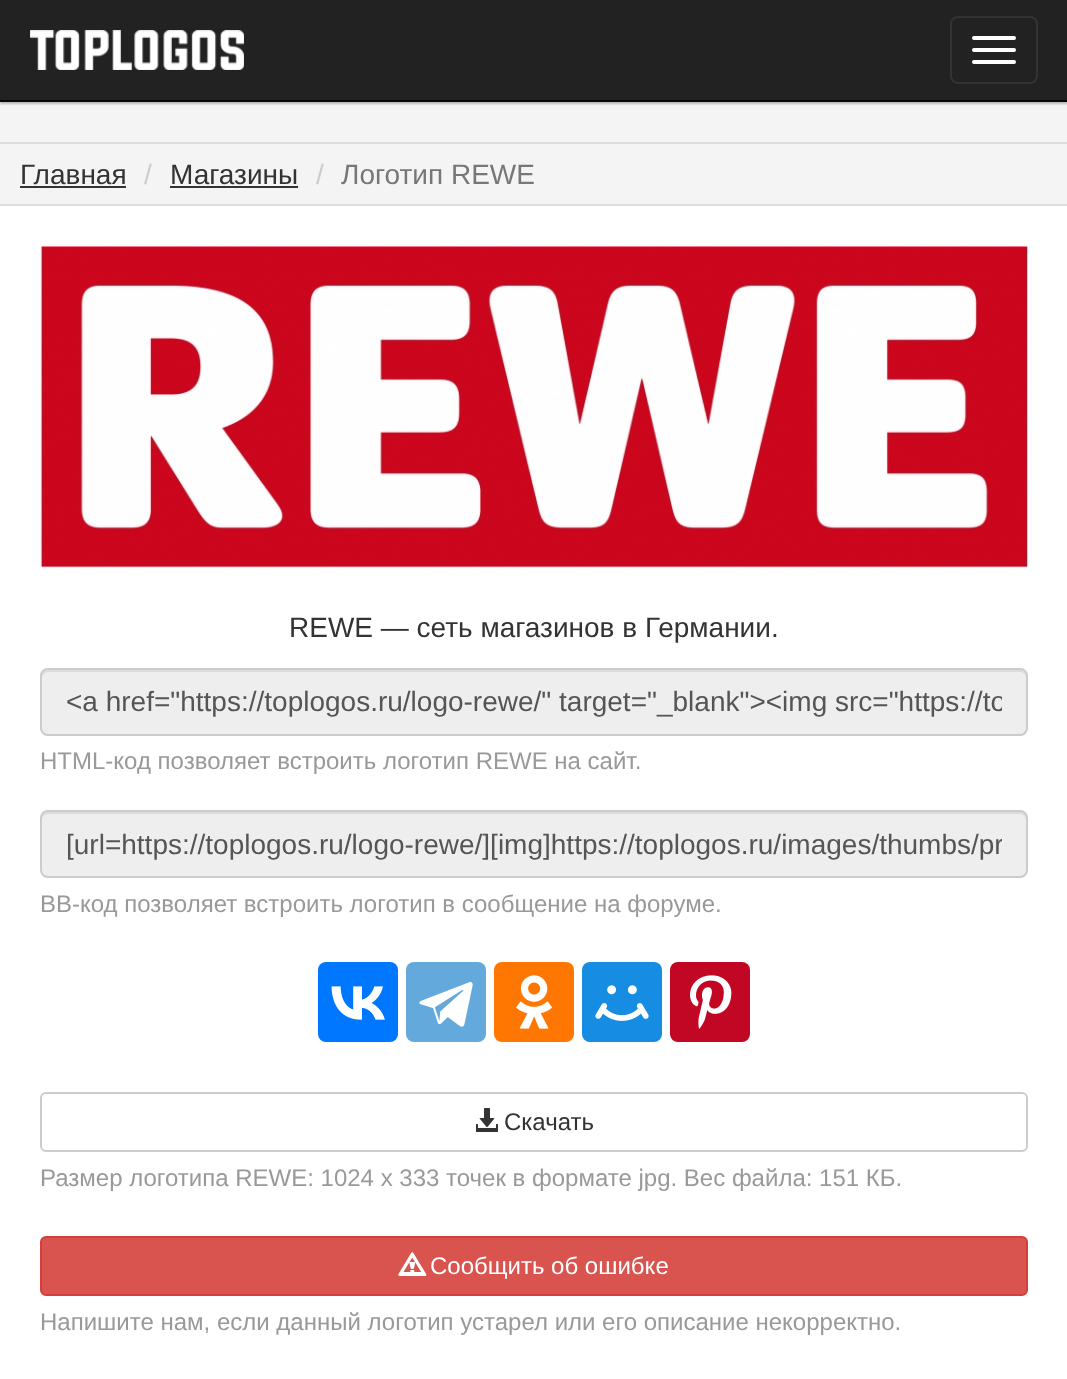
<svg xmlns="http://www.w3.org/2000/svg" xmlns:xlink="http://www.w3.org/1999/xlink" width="1067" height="1379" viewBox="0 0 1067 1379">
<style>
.cls-1{font:28px Liberation Sans;fill:#333333}
.cls-2{font:28px Liberation Sans;fill:#cccccc}
.cls-3{font:28px Liberation Sans;fill:#777777}
.cls-4{font:28px Liberation Sans;fill:#555555}
.cls-5{font:24px Liberation Sans;fill:#999999}
.cls-6{font:24px Liberation Sans;fill:#333333}
.cls-7{font:24px Liberation Sans;fill:#ffffff}
</style>
<defs>
<clipPath id="clip1"><rect x="66" y="686" width="936" height="32"/></clipPath>
<clipPath id="clip2"><rect x="66" y="828" width="936" height="32"/></clipPath>
</defs>
<rect width="100%" height="100%" fill="#f4f4f4"/>
<rect fill="#000000" fill-opacity="0.25" filter="blur(1px)" x="0" y="2" width="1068" height="102"/>
<rect fill="#222222" x="0" y="0" width="1067" height="100"/>
<rect fill="#080808" x="0" y="100" width="1067" height="2"/>
<image xlink:href="image0.png" x="30" y="30" width="214" height="40"/>
<rect fill="none" stroke="#333333" stroke-width="2" x="951" y="17" width="86" height="66" rx="7"/>
<rect fill="#ffffff" x="972" y="36" width="44" height="4" rx="2"/>
<rect fill="#ffffff" x="972" y="48" width="44" height="4" rx="2"/>
<rect fill="#ffffff" x="972" y="60" width="44" height="4" rx="2"/>
<rect fill="#ffffff" x="0" y="206" width="1067" height="1173"/>
<rect fill="#dddddd" x="0" y="142" width="1067" height="2"/>
<rect fill="#dddddd" x="0" y="204" width="1067" height="2"/>
<rect fill="#333333" x="20" y="186" width="106" height="2"/>
<rect fill="#333333" x="170" y="186" width="128" height="2"/>
<image xlink:href="image1.png" x="40" y="246" width="988" height="322"/>
<rect fill="#eeeeee" x="40" y="668" width="988" height="68" rx="8"/>
<path fill="#dcdcdc" d="M48 672H1020C1023 672 1026 675 1026 678V676C1026 673 1023 670 1020 670H48C45 670 42 673 42 676V678C42 675 45 672 48 672Z"/>
<rect fill="none" stroke="#cccccc" stroke-width="2" x="41" y="669" width="986" height="66" rx="7"/>
<rect fill="#eeeeee" x="40" y="810" width="988" height="68" rx="8"/>
<path fill="#dcdcdc" d="M48 814H1020C1023 814 1026 817 1026 820V818C1026 815 1023 812 1020 812H48C45 812 42 815 42 818V820C42 817 45 814 48 814Z"/>
<rect fill="none" stroke="#cccccc" stroke-width="2" x="41" y="811" width="986" height="66" rx="7"/>
<rect fill="#0077ff" x="318" y="962" width="80" height="80" rx="8"/>
<image xlink:href="image2.png" x="331" y="986" width="54" height="34"/>
<rect fill="#64a9dc" x="406" y="962" width="80" height="80" rx="8"/>
<image xlink:href="image3.png" x="419" y="982" width="54" height="45"/>
<rect fill="#ff7700" x="494" y="962" width="80" height="80" rx="8"/>
<image xlink:href="image4.png" x="516" y="975" width="36" height="54"/>
<rect fill="#168de2" x="582" y="962" width="80" height="80" rx="8"/>
<image xlink:href="image5.png" x="595" y="985" width="54" height="36"/>
<rect fill="#c20724" x="670" y="962" width="80" height="80" rx="8"/>
<image xlink:href="image6.png" x="690" y="975" width="42" height="54"/>
<rect fill="none" stroke="#cccccc" stroke-width="2" x="41" y="1093" width="986" height="58" rx="5"/>
<image xlink:href="image7.png" x="476" y="1108" width="22" height="24"/>
<rect fill="#d9534f" stroke="#d43f3a" stroke-width="2" x="41" y="1237" width="986" height="58" rx="5"/>
<image xlink:href="image8.png" x="398" y="1252" width="29" height="24"/>
<text class="cls-1" x="20" y="184">Главная</text>
<text class="cls-2" x="144" y="184">/</text>
<text class="cls-1" x="170" y="184">Магазины</text>
<text class="cls-2" x="316" y="184">/</text>
<text class="cls-3" x="341" y="184">Логотип REWE</text>
<text class="cls-1" x="289" y="637">REWE — сеть магазинов в Германии.</text>
<g clip-path="url(#clip1)">
<text class="cls-4" x="66" y="711">&lt;a href="https://toplogos.ru/logo-rewe/" target="_blank"&gt;&lt;img src="https://to</text>
</g>
<text class="cls-5" x="40" y="769">HTML-код позволяет встроить логотип REWE на сайт.</text>
<g clip-path="url(#clip2)">
<text class="cls-4" x="66" y="854">[url=https://toplogos.ru/logo-rewe/][img]https://toplogos.ru/images/thumbs/pr</text>
</g>
<text class="cls-5" x="40" y="912">BB-код позволяет встроить логотип в сообщение на форуме.</text>
<text class="cls-6" x="504" y="1130">Скачать</text>
<text class="cls-5" x="40" y="1186">Размер логотипа REWE: 1024 x 333 точек в формате jpg. Вес файла: 151 КБ.</text>
<text class="cls-7" x="430" y="1274">Сообщить об ошибке</text>
<text class="cls-5" x="40" y="1330">Напишите нам, если данный логотип устарел или его описание некорректно.</text>
</svg>
